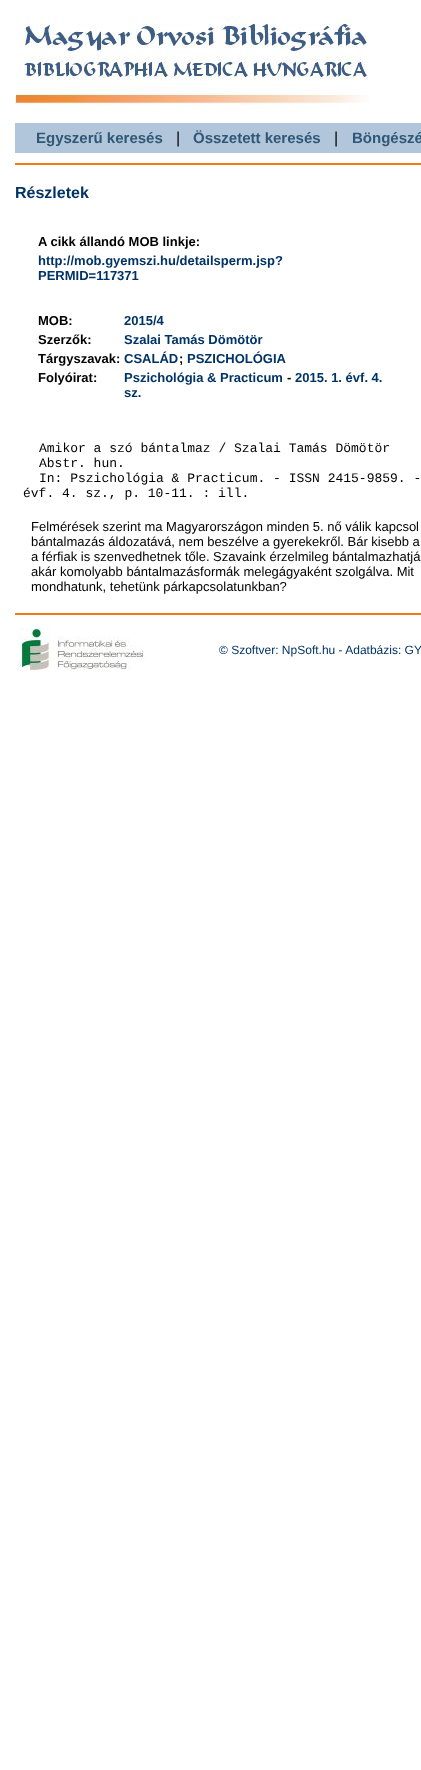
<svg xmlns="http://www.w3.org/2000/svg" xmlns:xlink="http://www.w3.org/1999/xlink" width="421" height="1770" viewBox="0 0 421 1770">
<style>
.cls-1{font:bold 15px Liberation Sans;fill:#305776}
.cls-2{font:16px Liberation Sans;fill:#000000}
.cls-3{font:bold 16px Liberation Sans;fill:#003366}
.cls-4{font:bold 13px Liberation Sans;fill:#000000}
.cls-5{font:bold 13px Liberation Sans;fill:#003366}
.cls-6{font:13px Liberation Mono;fill:#000000}
.cls-7{font:13px Liberation Sans;fill:#000000}
.cls-8{font:12px Liberation Sans;fill:#003366}
</style>
<rect width="100%" height="100%" fill="#ffffff"/>
<image xlink:href="image0.png" x="15" y="16" width="354" height="96"/>
<rect fill="#b1c6db" x="15" y="123" width="406" height="30"/>
<rect fill="#f17a14" x="15" y="163" width="406" height="2"/>
<rect fill="#f17a14" x="15" y="613" width="406" height="2"/>
<image xlink:href="image1.png" x="18" y="628" width="127" height="43"/>
<text class="cls-1" x="36" y="143">Egyszerű keresés</text>
<text class="cls-2" x="176" y="143">|</text>
<text class="cls-1" x="193" y="143">Összetett keresés</text>
<text class="cls-2" x="334" y="143">|</text>
<text class="cls-1" x="352" y="143">Böngészé</text>
<text class="cls-3" x="15" y="198">Részletek</text>
<text class="cls-4" x="38" y="246">A cikk állandó MOB linkje:</text>
<text class="cls-5"><tspan x="38" y="265">http://mob.gyemszi.hu/detailsperm.jsp?</tspan><tspan x="38" y="280">PERMID=117371</tspan></text>
<text class="cls-4" x="38" y="325">MOB:</text>
<text class="cls-5" x="124" y="325">2015/4</text>
<text class="cls-4" x="38" y="344">Szerzők:</text>
<text class="cls-5" x="124" y="344">Szalai Tamás Dömötör</text>
<text class="cls-4" x="38" y="363">Tárgyszavak:</text>
<text class="cls-5" x="124" y="363">CSALÁD</text>
<text class="cls-4" x="179" y="363">;</text>
<text class="cls-5" x="187" y="363">PSZICHOLÓGIA</text>
<text class="cls-4" x="38" y="382">Folyóirat:</text>
<text class="cls-5" x="124" y="382">Pszichológia &amp; Practicum</text>
<text class="cls-4" x="287" y="382">-</text>
<text class="cls-5" x="295" y="382">2015. 1. évf. 4.</text>
<text class="cls-5" x="124" y="397">sz.</text>
<text class="cls-6"><tspan x="39" y="452">Amikor a szó bántalmaz / Szalai Tamás Dömötör</tspan><tspan x="39" y="467">Abstr. hun.</tspan><tspan x="39" y="482">In: Pszichológia &amp; Practicum. - ISSN 2415-9859. -</tspan></text>
<text class="cls-6" x="23" y="497">évf. 4. sz., p. 10-11. : ill.</text>
<text class="cls-7"><tspan x="31" y="531">Felmérések szerint ma Magyarországon minden 5. nő válik kapcsol</tspan><tspan x="31" y="546">bántalmazás áldozatává, nem beszélve a gyerekekről. Bár kisebb a</tspan><tspan x="31" y="561">a férfiak is szenvedhetnek tőle. Szavaink érzelmileg bántalmazhatjá</tspan><tspan x="31" y="576">akár komolyabb bántalmazásformák melegágyaként szolgálva. Mit</tspan><tspan x="31" y="591">mondhatunk, tehetünk párkapcsolatunkban?</tspan></text>
<text class="cls-8" x="219" y="654">© Szoftver: NpSoft.hu - Adatbázis: GY</text>
</svg>
